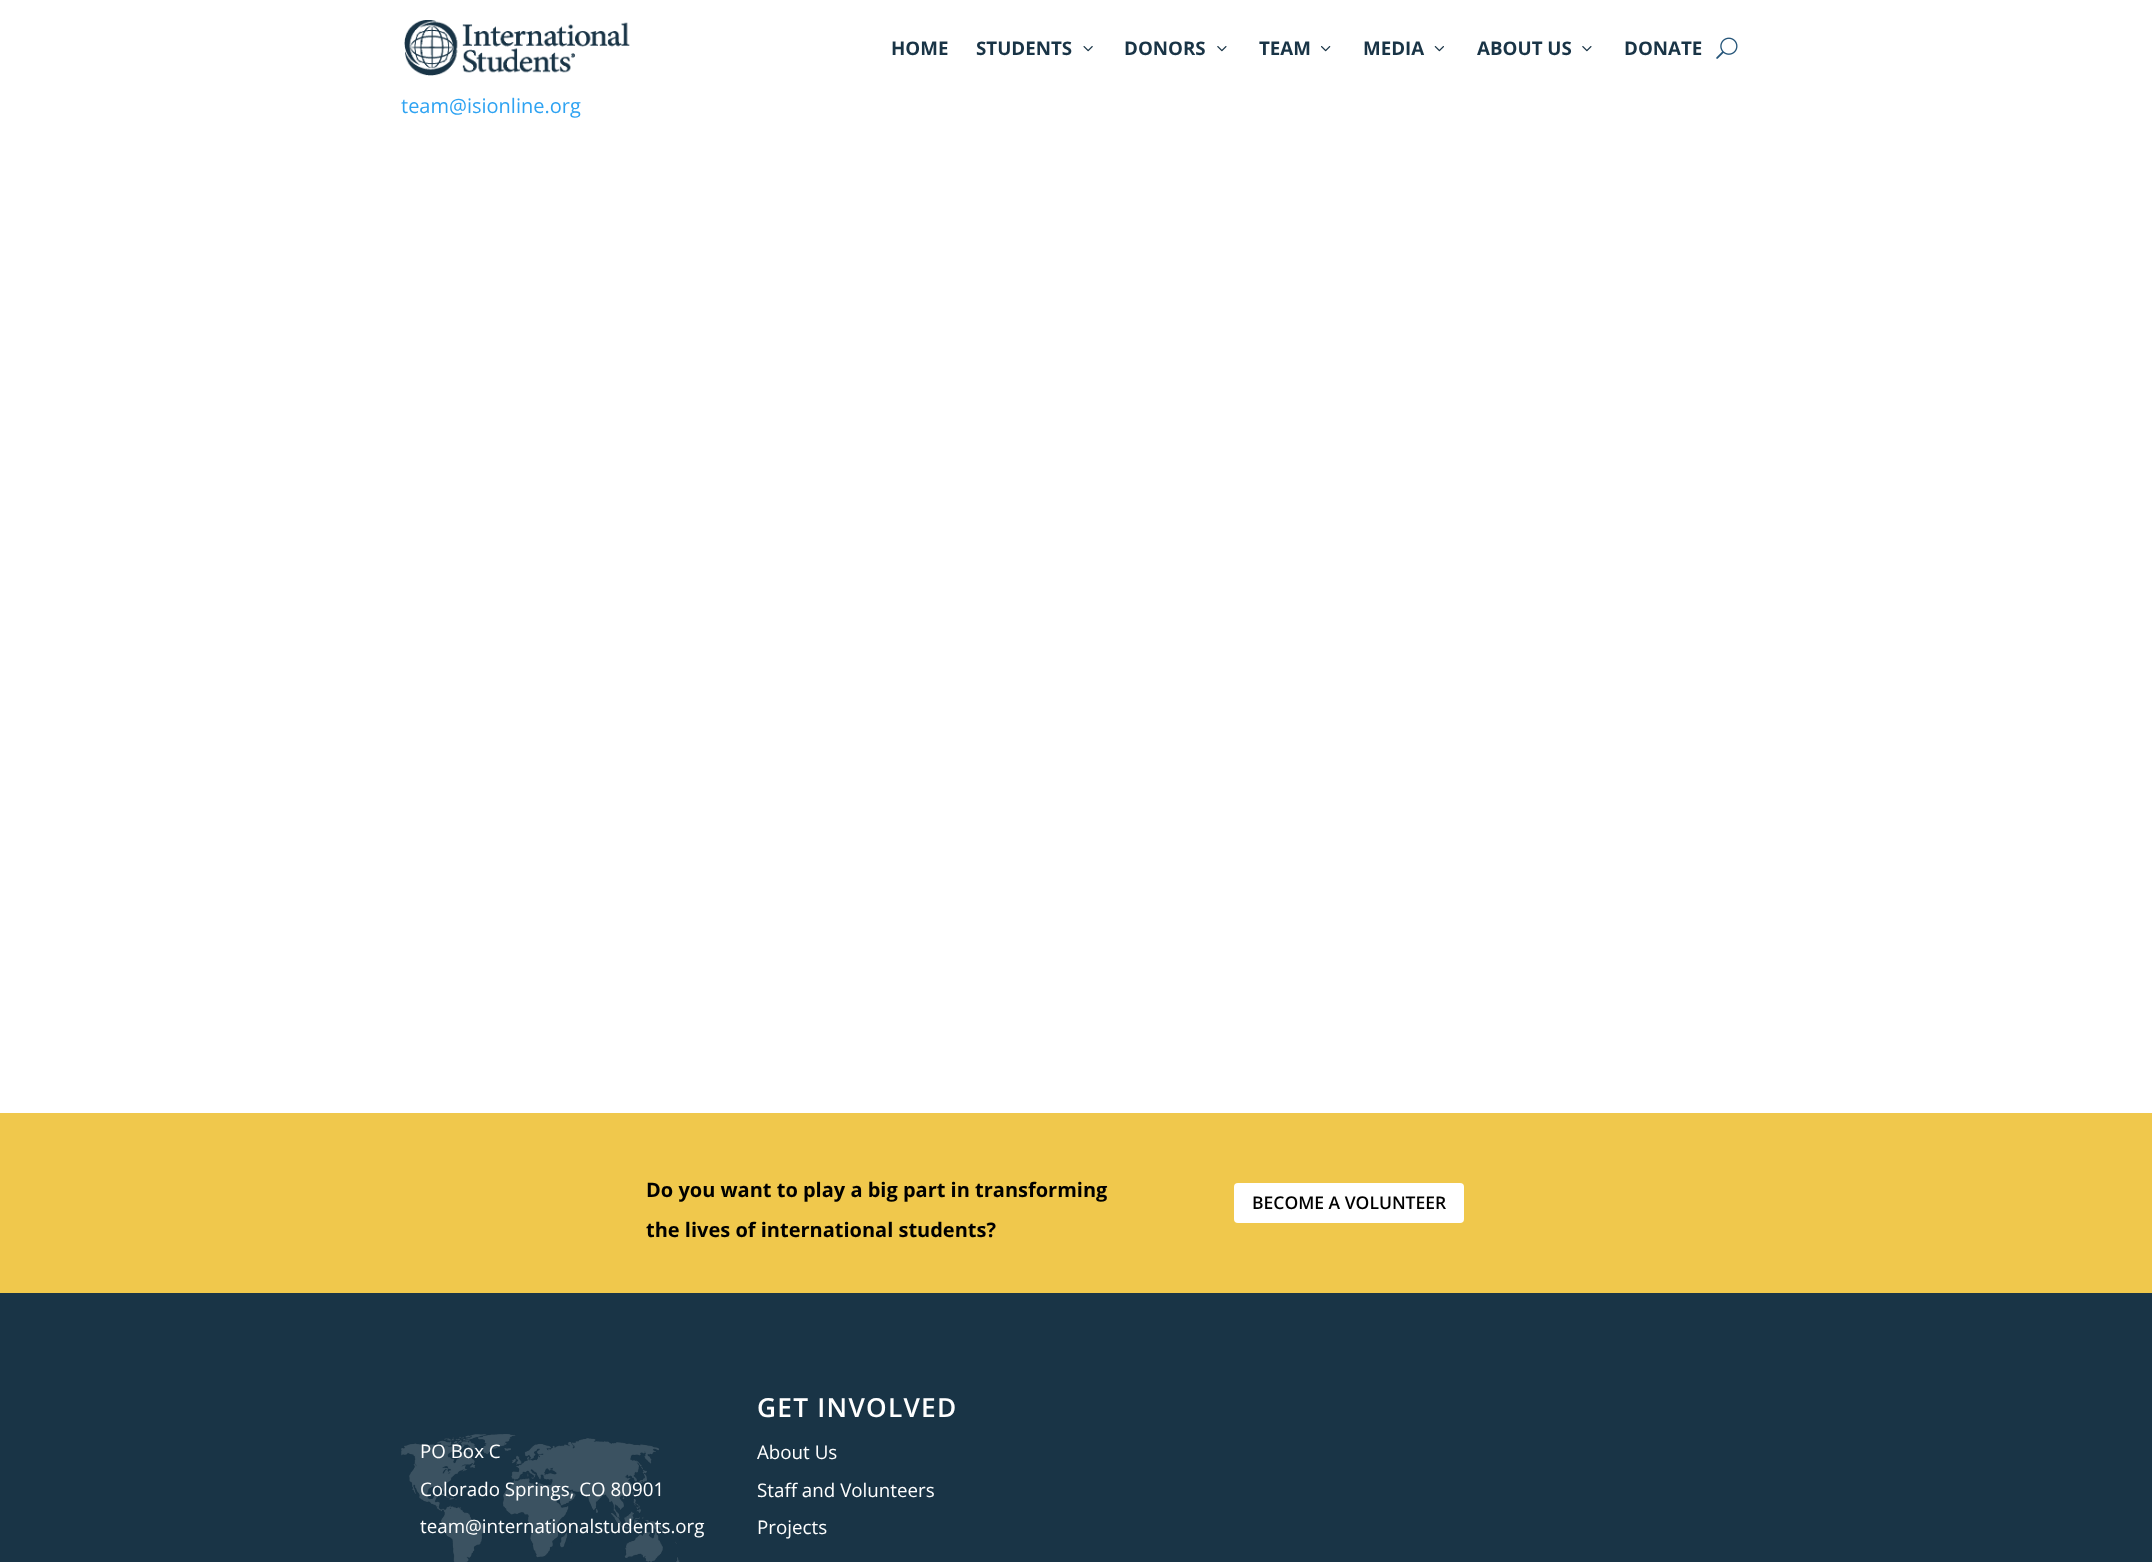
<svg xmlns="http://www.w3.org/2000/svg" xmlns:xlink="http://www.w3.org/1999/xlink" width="2152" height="1562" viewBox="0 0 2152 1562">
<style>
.cls-1{font:bold 18.75px Open Sans;fill:#193446}
.cls-2{font:20px Open Sans;fill:#2ea3f2}
.cls-3{font:bold 20px Open Sans;fill:#000000}
.cls-4{font:600 17.5px Open Sans;fill:#000000}
.cls-5{font:18.75px Open Sans;fill:#ffffff}
.cls-6{font:600 26.25px Open Sans;letter-spacing:1.25px;fill:#ffffff}
</style>
<rect width="100%" height="100%" fill="#ffffff"/>
<image xlink:href="image0.png" x="404" y="20" width="226" height="56"/>
<image xlink:href="image1.png" x="1083" y="46" width="10" height="6"/>
<image xlink:href="image2.png" x="1217" y="46" width="10" height="6"/>
<image xlink:href="image3.png" x="1321" y="46" width="10" height="6"/>
<image xlink:href="image4.png" x="1434" y="46" width="10" height="6"/>
<image xlink:href="image2.png" x="1582" y="46" width="10" height="6"/>
<image xlink:href="image5.png" x="1716" y="37" width="22" height="22"/>
<rect fill="#f0c84c" x="0" y="1113" width="2152" height="180"/>
<rect fill="#ffffff" x="1234" y="1183" width="230" height="40" rx="4"/>
<rect fill="#193446" x="0" y="1293" width="2152" height="269"/>
<image xlink:href="image6.png" x="401" y="1434" width="279" height="128"/>
<text class="cls-1" x="891" y="55">HOME</text>
<text class="cls-1" x="976" y="55">STUDENTS</text>
<text class="cls-1" x="1124" y="55">DONORS</text>
<text class="cls-1" x="1259" y="55">TEAM</text>
<text class="cls-1" x="1363" y="55">MEDIA</text>
<text class="cls-1" x="1477" y="55">ABOUT US</text>
<text class="cls-1" x="1624" y="55">DONATE</text>
<text class="cls-2" x="401" y="113">team@isionline.org</text>
<text class="cls-3" x="646" y="1197">Do you want to play a big part in transforming</text>
<text class="cls-3" x="646" y="1237">the lives of international students?</text>
<text class="cls-4" x="1252" y="1209">BECOME A VOLUNTEER</text>
<text class="cls-5" x="420" y="1458">PO Box C</text>
<text class="cls-5"><tspan x="420" y="1496">Colorado Springs, CO 80901</tspan><tspan x="420" y="1533">team@internationalstudents.org</tspan></text>
<text class="cls-6" x="757" y="1417">GET INVOLVED</text>
<text class="cls-5" x="757" y="1459">About Us</text>
<text class="cls-5"><tspan x="757" y="1497">Staff and Volunteers</tspan><tspan x="757" y="1534">Projects</tspan></text>
</svg>
